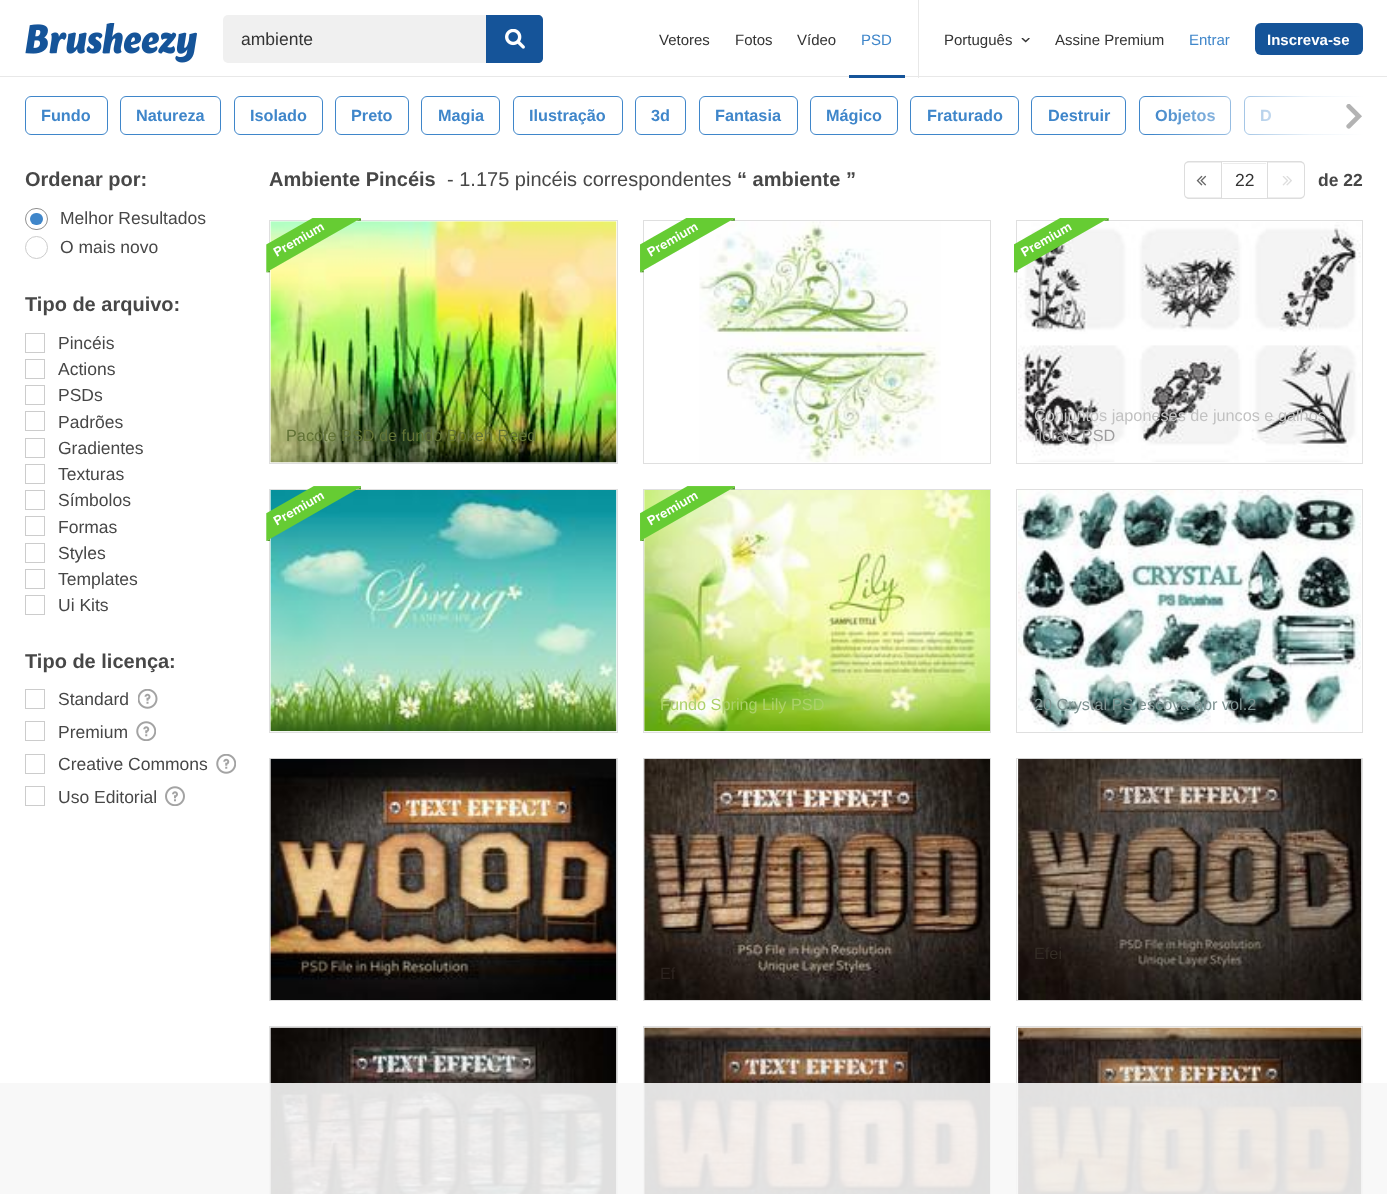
<svg xmlns="http://www.w3.org/2000/svg" xmlns:xlink="http://www.w3.org/1999/xlink" width="1387" height="1194" viewBox="0 0 1387 1194">
<style>
.cls-1{font:17.5px Liberation Sans;fill:#333333}
.cls-2{font:15px Liberation Sans;fill:#333333}
.cls-3{font:15px Liberation Sans;fill:#3f86ca}
.cls-4{font:bold 15px Liberation Sans;fill:#ffffff}
.cls-5{font:bold 16.25px Liberation Sans;fill:#3f86ca}
.cls-6{font:bold 20px Liberation Sans;fill:#474747}
.cls-7{font:17.5px Liberation Sans;fill:#474747}
.cls-8{font:20px Liberation Sans;fill:#474747}
.cls-9{font:bold 17.5px Liberation Sans;fill:#474747}
.cls-10{font:16.25px Liberation Sans;fill:#627336}
.cls-11{font:16.25px Liberation Sans;fill:#c2c2c2}
.cls-12{font:16.25px Liberation Sans;fill:#9e9d9e}
.cls-13{font:16.25px Liberation Sans;fill:#acd169}
.cls-14{font:16.25px Liberation Sans;fill:#7f9392}
.cls-15{font:16.25px Liberation Sans;fill:#332c25}
.cls-16{font:16.25px Liberation Sans;fill:#2d2420}
</style>
<defs>
<clipPath id="clip1"><rect x="25" y="96" width="1338" height="55"/></clipPath>
<linearGradient id="g1" gradientUnits="userSpaceOnUse" x1="1150" y1="116" x2="1363" y2="116"><stop offset="0" stop-color="#ffffff" stop-opacity="0"/><stop offset="0.75" stop-color="#ffffff" stop-opacity="0.9"/><stop offset="1" stop-color="#ffffff"/></linearGradient>
</defs>
<rect width="100%" height="100%" fill="#ffffff"/>
<rect fill="#e8e8e8" x="0" y="76" width="1387" height="1"/>
<image xlink:href="image0.png" x="25" y="23" width="172" height="40"/>
<rect fill="#f0f0f0" x="223" y="15" width="320" height="48" rx="5"/>
<path fill="#155499" d="M486 15H538C541 15 543 17 543 20V58C543 61 541 63 538 63H486Z"/>
<image xlink:href="image1.png" x="505" y="29" width="20" height="20"/>
<rect fill="#155499" x="849" y="75" width="56" height="3"/>
<rect fill="#e8e8e8" x="918" y="0" width="1" height="78"/>
<image xlink:href="image2.png" x="1021" y="38" width="9" height="5"/>
<rect fill="#155499" x="1255" y="23" width="108" height="32" rx="6"/>
<rect fill="none" stroke="#3f86ca" x="25.5" y="96.5" width="82" height="38" rx="5.5"/>
<rect fill="none" stroke="#3f86ca" x="120.5" y="96.5" width="100" height="38" rx="5.5"/>
<rect fill="none" stroke="#3f86ca" x="234.5" y="96.5" width="88" height="38" rx="5.5"/>
<rect fill="none" stroke="#3f86ca" x="335.5" y="96.5" width="73" height="38" rx="5.5"/>
<rect fill="none" stroke="#3f86ca" x="421.5" y="96.5" width="78" height="38" rx="5.5"/>
<rect fill="none" stroke="#3f86ca" x="513.5" y="96.5" width="109" height="38" rx="5.5"/>
<rect fill="none" stroke="#3f86ca" x="635.5" y="96.5" width="50" height="38" rx="5.5"/>
<rect fill="none" stroke="#3f86ca" x="699.5" y="96.5" width="98" height="38" rx="5.5"/>
<rect fill="none" stroke="#3f86ca" x="810.5" y="96.5" width="87" height="38" rx="5.5"/>
<rect fill="none" stroke="#3f86ca" x="910.5" y="96.5" width="108" height="38" rx="5.5"/>
<rect fill="none" stroke="#3f86ca" x="1031.5" y="96.5" width="94" height="38" rx="5.5"/>
<rect fill="none" stroke="#3f86ca" x="1139.5" y="96.5" width="91" height="38" rx="5.5"/>
<g clip-path="url(#clip1)">
<rect fill="none" stroke="#3f86ca" x="1244.5" y="96.5" width="123" height="38" rx="5.5"/>
</g>
<rect fill="none" stroke="#909090" x="25.5" y="208.5" width="22" height="21" rx="10.5"/>
<rect fill="#3f86ca" x="30" y="213" width="13" height="12" rx="6"/>
<circle fill="none" stroke="#cccccc" cx="36.5" cy="247.5" r="11"/>
<rect fill="none" stroke="#cccccc" x="25.5" y="333.5" width="19" height="19"/>
<rect fill="none" stroke="#cccccc" x="25.5" y="359.5" width="19" height="19"/>
<rect fill="none" stroke="#cccccc" x="25.5" y="385.5" width="19" height="19"/>
<rect fill="none" stroke="#cccccc" x="25.5" y="411.5" width="19" height="19"/>
<rect fill="none" stroke="#cccccc" x="25.5" y="438.5" width="19" height="19"/>
<rect fill="none" stroke="#cccccc" x="25.5" y="464.5" width="19" height="19"/>
<rect fill="none" stroke="#cccccc" x="25.5" y="490.5" width="19" height="19"/>
<rect fill="none" stroke="#cccccc" x="25.5" y="516.5" width="19" height="19"/>
<rect fill="none" stroke="#cccccc" x="25.5" y="543.5" width="19" height="19"/>
<rect fill="none" stroke="#cccccc" x="25.5" y="569.5" width="19" height="19"/>
<rect fill="none" stroke="#cccccc" x="25.5" y="595.5" width="19" height="19"/>
<rect fill="none" stroke="#cccccc" x="25.5" y="689.5" width="19" height="19"/>
<image xlink:href="image4.png" x="138" y="689" width="20" height="20"/>
<rect fill="none" stroke="#cccccc" x="25.5" y="721.5" width="19" height="19"/>
<image xlink:href="image5.png" x="136" y="721" width="20" height="20"/>
<rect fill="none" stroke="#cccccc" x="25.5" y="754.5" width="19" height="19"/>
<image xlink:href="image6.png" x="216" y="754" width="20" height="20"/>
<rect fill="none" stroke="#cccccc" x="25.5" y="786.5" width="19" height="19"/>
<image xlink:href="image7.png" x="165" y="786" width="20" height="20"/>
<path fill="#dddddd" fill-rule="evenodd" d="M1189 161H1221V199H1189C1186 199 1184 196.5 1184 194V166C1184 163.5 1186 161 1189 161ZM1189 162.5H1221V197.5H1189C1186.5 197.5 1185 196 1185 194V166C1185 164 1186.5 162.5 1189 162.5Z"/>
<image xlink:href="image8.png" x="1196" y="175" width="11" height="11"/>
<rect fill="#ececec" x="1223" y="163" width="43" height="1"/>
<rect fill="none" stroke="#dddddd" x="1221.5" y="161.5" width="46" height="37"/>
<path fill="#dddddd" fill-rule="evenodd" d="M1267.5 161H1300C1303 161 1305 163.5 1305 166V194C1305 196.5 1303 199 1300 199H1267.5ZM1267.5 162.5H1300C1302 162.5 1304 164 1304 166V194C1304 196 1302 197.5 1300 197.5H1267.5Z"/>
<image xlink:href="image9.png" x="1282" y="176" width="10" height="10"/>
<rect fill="none" stroke="#dfdfdf" x="269.5" y="220.5" width="348" height="243"/>
<image xlink:href="image11.png" x="270" y="221" width="347" height="242"/>
<image xlink:href="image10.png" x="266" y="218" width="95" height="55"/>
<rect fill="none" stroke="#dfdfdf" x="643.5" y="220.5" width="347" height="243"/>
<image xlink:href="image13.png" x="699" y="221" width="242" height="242"/>
<image xlink:href="image12.png" x="640" y="218" width="95" height="55"/>
<rect fill="none" stroke="#dfdfdf" x="1016.5" y="220.5" width="346" height="243"/>
<image xlink:href="image15.png" x="1018" y="222" width="343" height="240"/>
<image xlink:href="image14.png" x="1014" y="218" width="95" height="55"/>
<rect fill="none" stroke="#dfdfdf" x="269.5" y="489.5" width="348" height="243"/>
<image xlink:href="image17.png" x="270" y="490" width="347" height="242"/>
<image xlink:href="image16.png" x="266" y="486" width="95" height="55"/>
<rect fill="none" stroke="#dfdfdf" x="643.5" y="489.5" width="347" height="243"/>
<image xlink:href="image19.png" x="644" y="490" width="346" height="242"/>
<image xlink:href="image18.png" x="640" y="486" width="95" height="55"/>
<rect fill="none" stroke="#dfdfdf" x="1016.5" y="489.5" width="346" height="243"/>
<image xlink:href="image20.png" x="1018" y="490" width="343" height="241"/>
<rect fill="none" stroke="#dfdfdf" x="269.5" y="758.5" width="348" height="242"/>
<image xlink:href="image21.png" x="270" y="758" width="347" height="242"/>
<rect fill="none" stroke="#dfdfdf" x="1016.5" y="758.5" width="346" height="242"/>
<image xlink:href="image22.png" x="1018" y="758" width="344" height="242"/>
<rect fill="none" stroke="#dfdfdf" x="643.5" y="758.5" width="347" height="242"/>
<image xlink:href="image23.png" x="644" y="758" width="346" height="242"/>
<rect fill="none" stroke="#dfdfdf" x="269.5" y="1026.5" width="348" height="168"/>
<image xlink:href="image24.png" x="270" y="1027" width="347" height="167"/>
<rect fill="none" stroke="#dfdfdf" x="643.5" y="1026.5" width="347" height="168"/>
<image xlink:href="image25.png" x="644" y="1027" width="346" height="167"/>
<rect fill="none" stroke="#dfdfdf" x="1016.5" y="1026.5" width="346" height="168"/>
<image xlink:href="image26.png" x="1018" y="1027" width="344" height="167"/>
<rect fill="#f7f7f7" fill-opacity="0.9" x="0" y="1083" width="1387" height="111"/>
<text class="cls-1" x="241" y="45">ambiente</text>
<text class="cls-2" x="659" y="45">Vetores</text>
<text class="cls-2" x="735" y="45">Fotos</text>
<text class="cls-2" x="797" y="45">Vídeo</text>
<text class="cls-3" x="861" y="45">PSD</text>
<text class="cls-2" x="944" y="45">Português</text>
<text class="cls-2" x="1055" y="45">Assine Premium</text>
<text class="cls-3" x="1189" y="45">Entrar</text>
<text class="cls-4" x="1267" y="45">Inscreva-se</text>
<text class="cls-5" x="41" y="121">Fundo</text>
<text class="cls-5" x="136" y="121">Natureza</text>
<text class="cls-5" x="250" y="121">Isolado</text>
<text class="cls-5" x="351" y="121">Preto</text>
<text class="cls-5" x="438" y="121">Magia</text>
<text class="cls-5" x="529" y="121">Ilustração</text>
<text class="cls-5" x="651" y="121">3d</text>
<text class="cls-5" x="715" y="121">Fantasia</text>
<text class="cls-5" x="826" y="121">Mágico</text>
<text class="cls-5" x="927" y="121">Fraturado</text>
<text class="cls-5" x="1048" y="121">Destruir</text>
<text class="cls-5" x="1155" y="121">Objetos</text>
<text class="cls-5" x="1260" y="121">D</text>
<rect fill="url(#g1)" x="1154" y="96" width="209" height="39"/>
<image xlink:href="image3.png" x="1346" y="104" width="16" height="25"/>
<text class="cls-6" x="25" y="186">Ordenar por:</text>
<text class="cls-7"><tspan x="60" y="224">Melhor Resultados</tspan><tspan x="60" y="253">O mais novo</tspan></text>
<text class="cls-6" x="25" y="311">Tipo de arquivo:</text>
<text class="cls-7"><tspan x="58" y="349">Pincéis</tspan><tspan x="58" y="375">Actions</tspan><tspan x="58" y="401">PSDs</tspan><tspan x="58" y="428">Padrões</tspan><tspan x="58" y="454">Gradientes</tspan><tspan x="58" y="480">Texturas</tspan><tspan x="58" y="506">Símbolos</tspan><tspan x="58" y="533">Formas</tspan><tspan x="58" y="559">Styles</tspan><tspan x="58" y="585">Templates</tspan><tspan x="58" y="611">Ui Kits</tspan></text>
<text class="cls-6" x="25" y="668">Tipo de licença:</text>
<text class="cls-7"><tspan x="58" y="705">Standard</tspan><tspan x="58" y="738">Premium</tspan><tspan x="58" y="770">Creative Commons</tspan><tspan x="58" y="803">Uso Editorial</tspan></text>
<text class="cls-6" x="269" y="186">Ambiente Pincéis</text>
<text class="cls-8" x="447" y="186">- 1.175 pincéis correspondentes</text>
<text class="cls-6" x="737" y="186">“ ambiente ”</text>
<text class="cls-1" x="1235" y="186">22</text>
<text class="cls-9" x="1318" y="186">de 22</text>
<text class="cls-10" x="286" y="441">Pacote PSD de fundo Bokeh Reed</text>
<text class="cls-11" x="1034" y="421">Conjuntos japoneses de juncos e galhos</text>
<text class="cls-12" x="1034" y="441">florais PSD</text>
<text class="cls-13" x="660" y="710">Fundo Spring Lily PSD</text>
<text class="cls-14" x="1034" y="710">20 Crystal PS escova abr vol.2</text>
<text class="cls-15" x="1034" y="959">Efei</text>
<text class="cls-16" x="660" y="979">Ef</text>
</svg>
